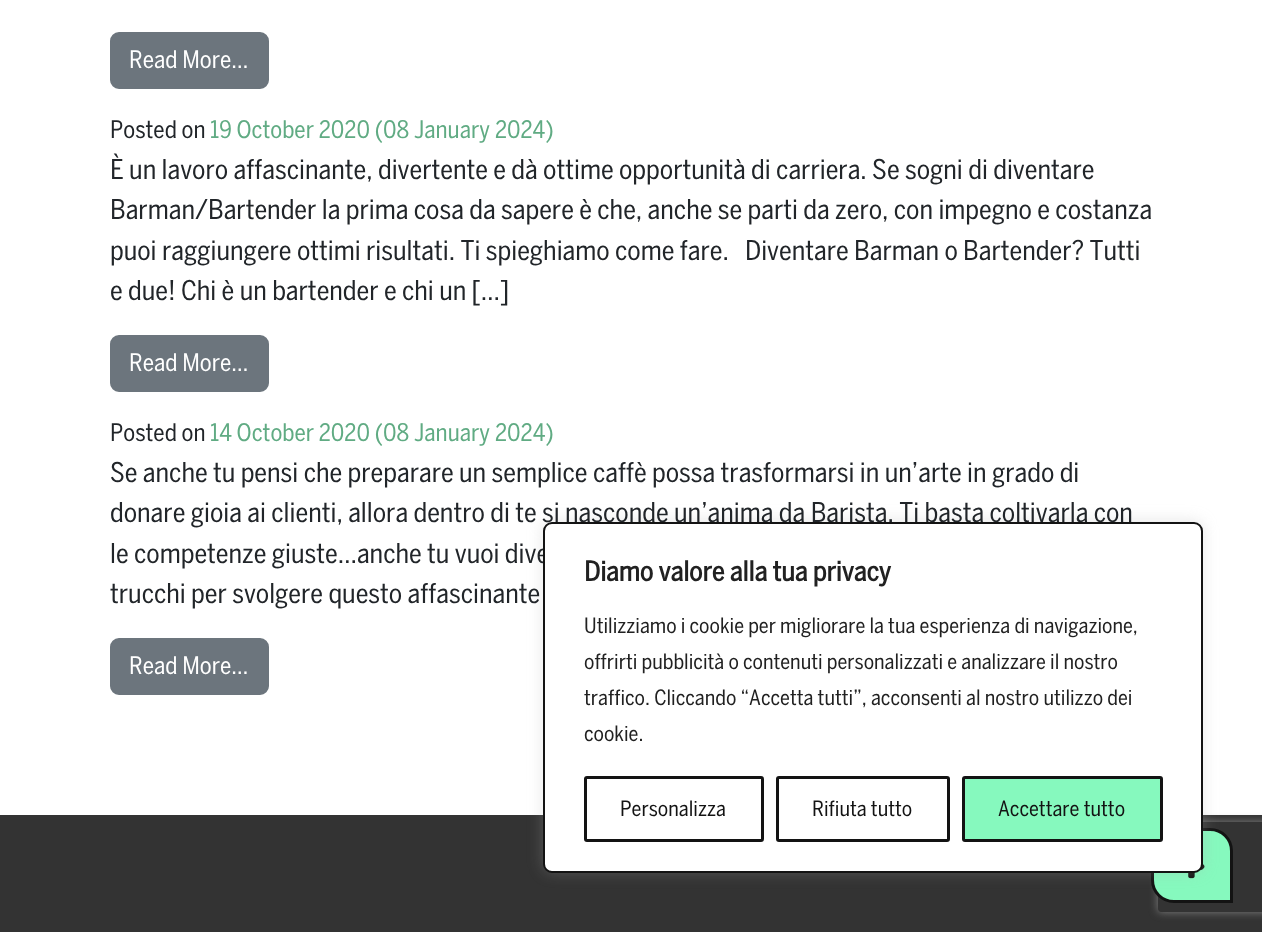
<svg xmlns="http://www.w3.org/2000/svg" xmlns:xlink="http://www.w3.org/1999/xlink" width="1262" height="932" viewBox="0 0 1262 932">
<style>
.cls-1{font:24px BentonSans;fill:#ffffff}
.cls-2{font:24px BentonSans;fill:#212529}
.cls-3{font:24px BentonSans;fill:#60ab83}
.cls-4{font:27px BentonSans;fill:#212529}
.cls-5{font:bold 27px BentonSans;fill:#212121}
.cls-6{font:21px BentonSans;fill:#212121}
.cls-7{font:21px BentonSans;fill:#131313}
</style>
<defs>
<clipPath id="clip1"><path d="M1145 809H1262V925H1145ZM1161 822H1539C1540.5 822 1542 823.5 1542 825V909C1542 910.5 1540.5 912 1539 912H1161C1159.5 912 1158 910.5 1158 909V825C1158 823.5 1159.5 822 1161 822Z" clip-rule="evenodd"/></clipPath>
</defs>
<rect width="100%" height="100%" fill="#ffffff"/>
<rect fill="#6c757d" stroke="#6c757d" stroke-width="2" x="111" y="33" width="157" height="55" rx="8"/>
<rect fill="#6c757d" stroke="#6c757d" stroke-width="2" x="111" y="336" width="157" height="55" rx="8"/>
<rect fill="#6c757d" stroke="#6c757d" stroke-width="2" x="111" y="639" width="157" height="55" rx="8"/>
<rect fill="#333333" x="0" y="815" width="1262" height="117"/>
<g clip-path="url(#clip1)">
<rect fill="#808080" filter="blur(4px)" x="1158" y="822" width="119" height="90" rx="3"/>
</g>
<path fill="#86f9be" stroke="#131313" stroke-width="3" d="M1152.5 829.5H1210C1222 829.5 1231.5 839 1231.5 851V901.5H1174C1162 901.5 1152.5 892 1152.5 880Z"/>
<image xlink:href="image0.png" x="1188" y="864" width="17" height="15"/>
<rect fill="#acabab" fill-opacity="0.3" filter="blur(7.5px)" x="543" y="521" width="660" height="351" rx="9"/>
<text class="cls-1" x="129" y="68">Read More…</text>
<text class="cls-2" x="110" y="138">Posted on</text>
<text class="cls-3" x="210" y="138">19 October 2020 (08 January 2024)</text>
<text class="cls-4" xml:space="preserve"><tspan x="110" y="179">È un lavoro affascinante, divertente e dà ottime opportunità di carriera. Se sogni di diventare</tspan><tspan x="110" y="219">Barman/Bartender la prima cosa da sapere è che, anche se parti da zero, con impegno e costanza</tspan><tspan x="110" y="260">puoi raggiungere ottimi risultati. Ti spieghiamo come fare.   Diventare Barman o Bartender? Tutti</tspan><tspan x="110" y="300">e due! Chi è un bartender e chi un […]</tspan></text>
<text class="cls-1" x="129" y="371">Read More…</text>
<text class="cls-2" x="110" y="441">Posted on</text>
<text class="cls-3" x="210" y="441">14 October 2020 (08 January 2024)</text>
<text class="cls-4"><tspan x="110" y="482">Se anche tu pensi che preparare un semplice caffè possa trasformarsi in un’arte in grado di</tspan><tspan x="110" y="522">donare gioia ai clienti, allora dentro di te si nasconde un’anima da Barista. Ti basta coltivarla con</tspan><tspan x="110" y="563">le competenze giuste…anche tu vuoi dive</tspan><tspan x="110" y="603">trucchi per svolgere questo affascinante</tspan></text>
<text class="cls-1" x="129" y="674">Read More…</text>
<rect fill="#ffffff" stroke="#131313" stroke-width="2" x="544" y="523" width="658" height="349" rx="8"/>
<text class="cls-5" x="584" y="581">Diamo valore alla tua privacy</text>
<text class="cls-6"><tspan x="584" y="633">Utilizziamo i cookie per migliorare la tua esperienza di navigazione,</tspan><tspan x="584" y="669">offrirti pubblicità o contenuti personalizzati e analizzare il nostro</tspan><tspan x="584" y="705">traffico. Cliccando “Accetta tutti”, acconsenti al nostro utilizzo dei</tspan><tspan x="584" y="741">cookie.</tspan></text>
<rect fill="none" stroke="#131313" stroke-width="3" x="585.5" y="777.5" width="177" height="63" rx="1.5"/>
<text class="cls-7" x="620" y="816">Personalizza</text>
<rect fill="none" stroke="#131313" stroke-width="3" x="777.5" y="777.5" width="171" height="63" rx="1.5"/>
<text class="cls-7" x="812" y="816">Rifiuta tutto</text>
<rect fill="#86f9be" stroke="#131313" stroke-width="3" x="963.5" y="777.5" width="198" height="63" rx="1.5"/>
<text class="cls-7" x="998" y="816">Accettare tutto</text>
</svg>
